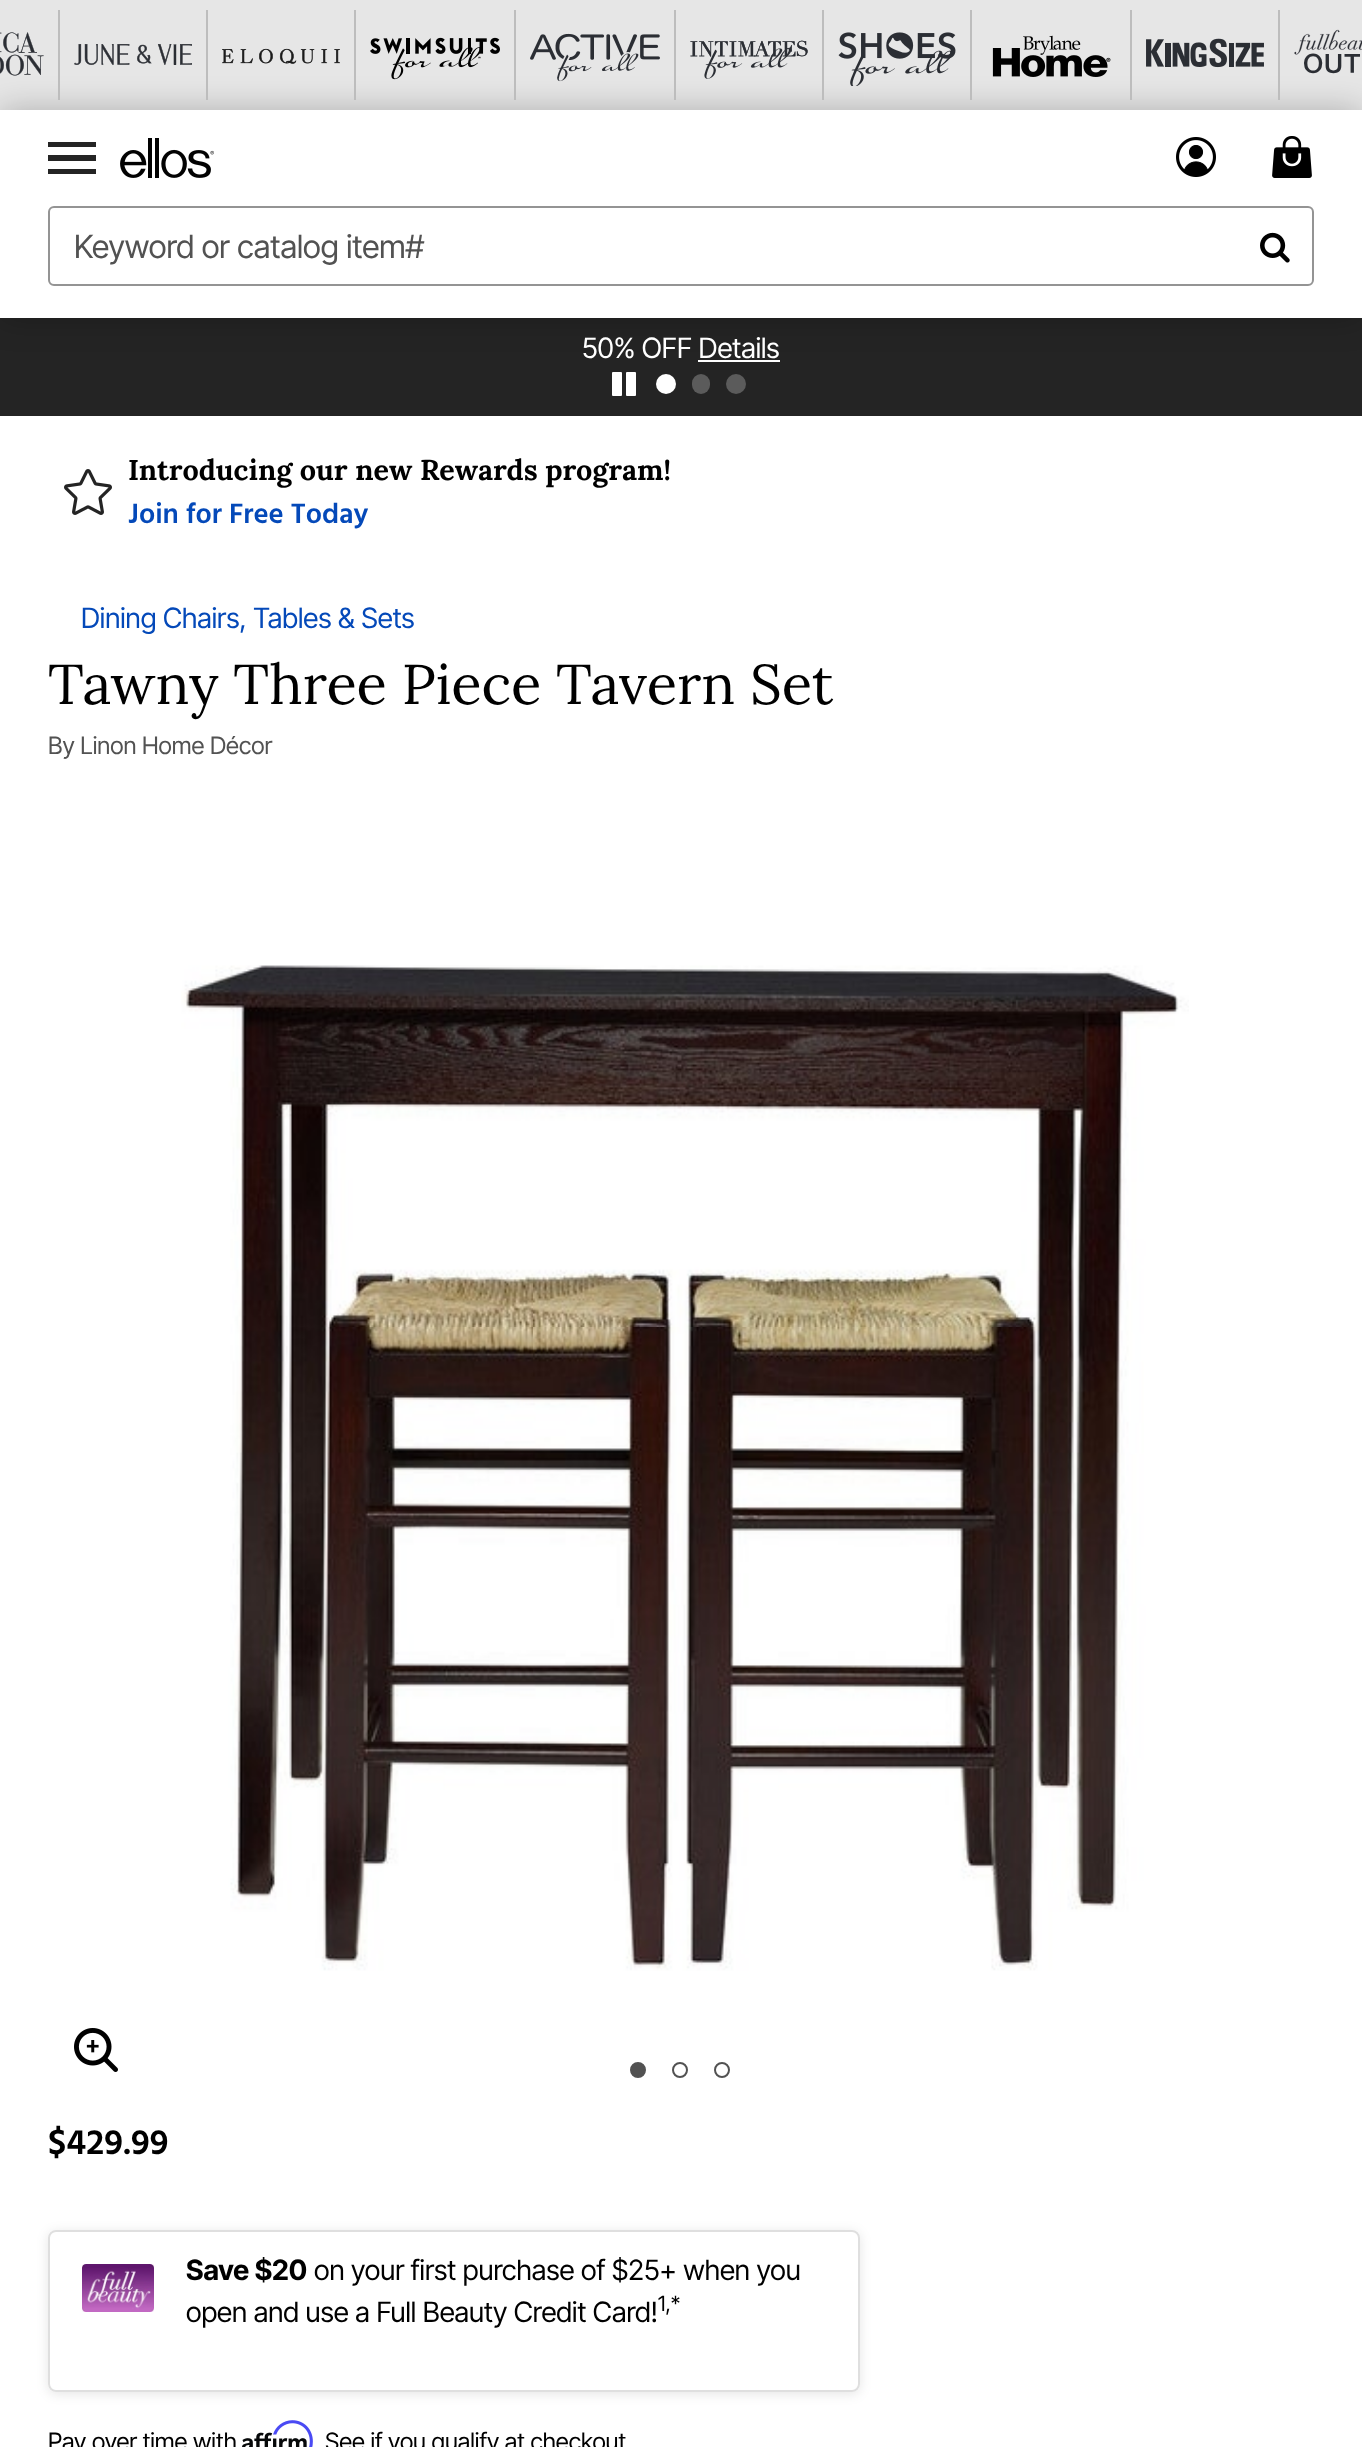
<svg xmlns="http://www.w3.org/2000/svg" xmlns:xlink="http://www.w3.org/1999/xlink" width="1362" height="2447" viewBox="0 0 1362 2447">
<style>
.cls-1{font:32px Inter Tight;fill:#525252}
.cls-2{font:28px Inter Tight;fill:#ffffff}
.cls-3{font:bold 28.75px Lora;fill:#000000}
.cls-4{font:600 28.75px Hind Siliguri;fill:#0449b9}
.cls-5{font:28px Inter Tight;fill:#0449b9}
.cls-6{font:56px Lora;fill:#000000}
.cls-7{font:24px Inter Tight;fill:#525252}
.cls-8{font:600 36px Hind Siliguri;fill:#000000}
.cls-9{font:bold 28px Inter Tight;fill:#000000}
.cls-10{font:28px Inter Tight;fill:#000000}
.cls-11{font:21px Inter Tight;fill:#000000}
.cls-12{font:24px Inter Tight;fill:#000000}
</style>
<defs>
<clipPath id="clip1"><path d="M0 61H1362V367H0ZM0 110H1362V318H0Z" clip-rule="evenodd"/></clipPath>
<clipPath id="clip2"><path d="M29 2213H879V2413H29ZM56 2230H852C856.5 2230 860 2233.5 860 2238V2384C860 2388.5 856.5 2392 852 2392H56C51.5 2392 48 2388.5 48 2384V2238C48 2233.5 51.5 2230 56 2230Z" clip-rule="evenodd"/></clipPath>
</defs>
<rect width="100%" height="100%" fill="#ffffff"/>
<rect fill="#e6e6e6" x="0" y="0" width="1362" height="110"/>
<rect fill="#242424" x="0" y="318" width="1362" height="98"/>
<rect fill="#ffffff" x="698" y="360" width="82" height="2"/>
<g clip-path="url(#clip1)">
<rect fill="#000000" fill-opacity="0.24" filter="blur(16px)" x="0" y="110" width="1362" height="208"/>
</g>
<rect fill="#bdbdbd" x="58" y="10" width="2" height="90"/>
<image xlink:href="image0.png" x="0" y="32" width="44" height="44"/>
<rect fill="#bdbdbd" x="206" y="10" width="2" height="90"/>
<image xlink:href="image1.png" x="74" y="44" width="118" height="21"/>
<rect fill="#bdbdbd" x="354" y="10" width="2" height="90"/>
<image xlink:href="image2.png" x="222" y="48" width="118" height="16"/>
<rect fill="#bdbdbd" x="514" y="10" width="2" height="90"/>
<image xlink:href="image3.png" x="370" y="37" width="130" height="43"/>
<rect fill="#bdbdbd" x="674" y="10" width="2" height="90"/>
<image xlink:href="image4.png" x="530" y="33" width="130" height="49"/>
<rect fill="#bdbdbd" x="822" y="10" width="2" height="90"/>
<image xlink:href="image5.png" x="690" y="40" width="118" height="39"/>
<rect fill="#bdbdbd" x="970" y="10" width="2" height="90"/>
<image xlink:href="image6.png" x="838" y="32" width="118" height="54"/>
<rect fill="#bdbdbd" x="1130" y="10" width="2" height="90"/>
<image xlink:href="image7.png" x="992" y="35" width="119" height="42"/>
<rect fill="#bdbdbd" x="1278" y="10" width="2" height="90"/>
<image xlink:href="image8.png" x="1146" y="38" width="118" height="30"/>
<image xlink:href="image9.png" x="1294" y="29" width="68" height="45"/>
<path fill="#242424" d="M48 174H96V169H48ZM48 161H96V155H48ZM48 142V147H96V142Z"/>
<image xlink:href="image10.png" x="120" y="138" width="94" height="40"/>
<image xlink:href="image11.png" x="1176" y="137" width="40" height="40"/>
<image xlink:href="image12.png" x="1272" y="136" width="40" height="42"/>
<rect fill="none" stroke="#949494" stroke-width="2" x="49" y="207" width="1264" height="78" rx="5"/>
<image xlink:href="image13.png" x="1260" y="232" width="30" height="31"/>
<image xlink:href="image14.png" x="612" y="372" width="24" height="24"/>
<circle fill="#ffffff" cx="666" cy="384" r="10"/>
<rect fill="#5b5b5b" x="692" y="374" width="18" height="20" rx="9"/>
<circle fill="#5b5b5b" cx="736" cy="384" r="10"/>
<image xlink:href="image15.png" x="64" y="469" width="48" height="46"/>
<image xlink:href="image16.png" x="74" y="2028" width="44" height="44"/>
<image xlink:href="image17.png" x="181" y="965" width="1008" height="1006"/>
<circle fill="#525252" stroke="#525252" stroke-width="2" cx="638" cy="2070" r="7"/>
<circle fill="none" stroke="#525252" stroke-width="2" cx="680" cy="2070" r="7"/>
<circle fill="none" stroke="#525252" stroke-width="2" cx="722" cy="2070" r="7"/>
<g clip-path="url(#clip2)">
<rect fill="#000000" fill-opacity="0.1" filter="blur(6px)" x="48" y="2232" width="812" height="162" rx="8"/>
</g>
<rect fill="none" stroke="#dfdfdf" stroke-width="2" x="49" y="2231" width="810" height="160" rx="7"/>
<image xlink:href="image18.png" x="82" y="2264" width="72" height="48"/>
<image xlink:href="image20.png" x="242" y="2432" width="65" height="15"/>
<image xlink:href="image19.png" x="273" y="2420" width="40" height="27"/>
<text class="cls-1" x="74" y="258">Keyword or catalog item#</text>
<text class="cls-2" x="582" y="358">50% OFF Details</text>
<text class="cls-3" x="128" y="480">Introducing our new Rewards program!</text>
<text class="cls-4" x="128" y="523">Join for Free Today</text>
<text class="cls-5" x="81" y="628">Dining Chairs, Tables &amp; Sets</text>
<text class="cls-6" x="48" y="704">Tawny Three Piece Tavern Set</text>
<text class="cls-7" x="48" y="754">By Linon Home Décor</text>
<text class="cls-8" x="48" y="2154">$429.99</text>
<text class="cls-9" x="186" y="2280">Save $20</text>
<text class="cls-10" x="314" y="2280">on your first purchase of $25+ when you</text>
<text class="cls-10" x="186" y="2322">open and use a Full Beauty Credit Card!</text>
<text class="cls-11" x="658" y="2311">1,*</text>
<text class="cls-12" x="48" y="2450">Pay over time with</text>
<text class="cls-12" x="325" y="2450">See if you qualify at checkout</text>
</svg>
